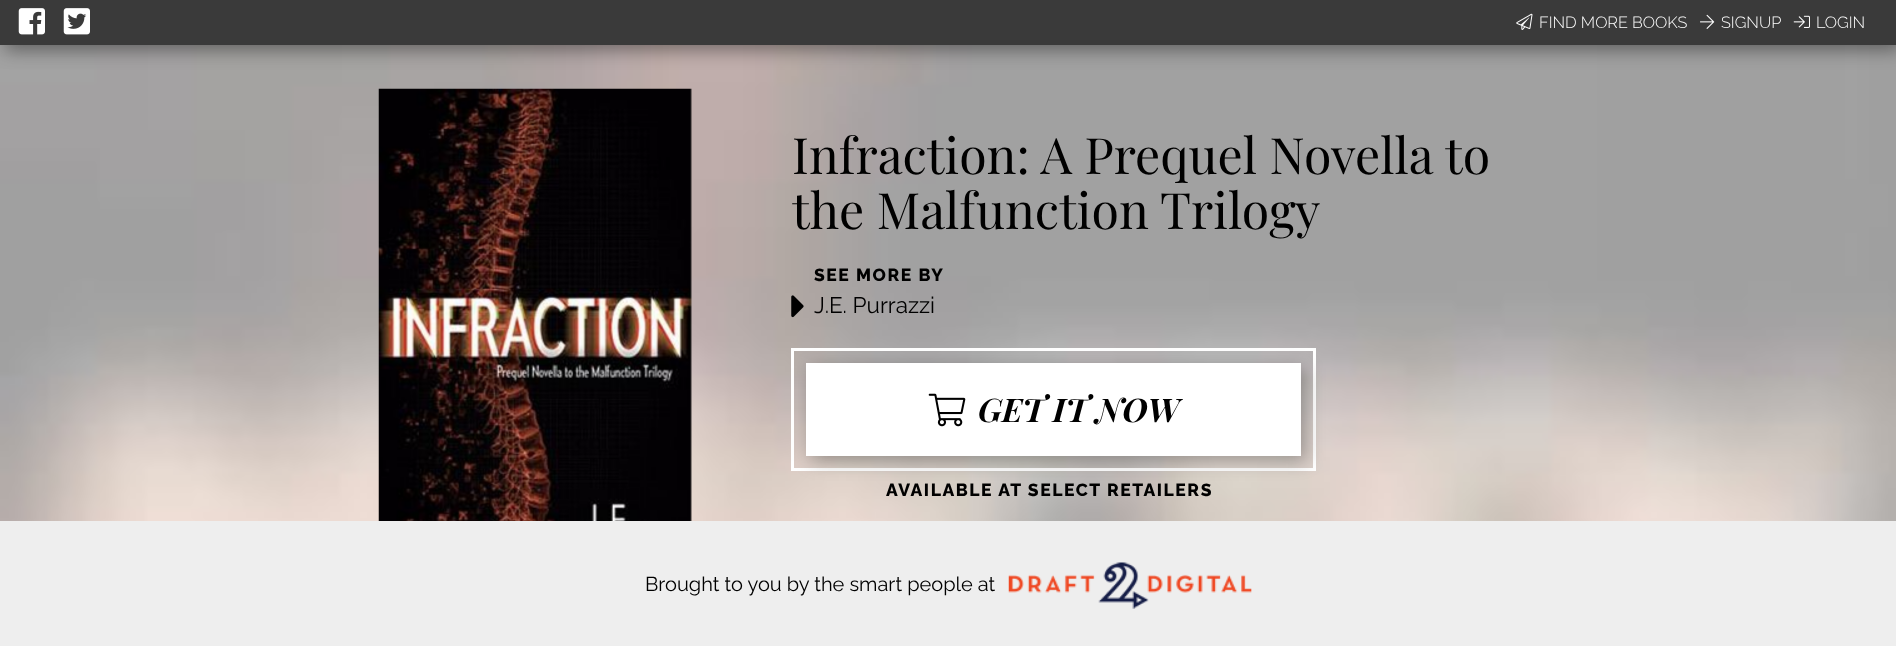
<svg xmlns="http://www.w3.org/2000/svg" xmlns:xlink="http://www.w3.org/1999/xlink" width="1896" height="646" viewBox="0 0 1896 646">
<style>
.cls-1{font:300 16.25px Raleway;fill:#ffffff}
.cls-2{font:50px Playfair Display;fill:#000000}
.cls-3{font:800 17.5px Raleway;letter-spacing:1.55px;fill:#000000}
.cls-4{font:22.5px Raleway;fill:#000000}
.cls-5{font:italic bold 32.5px Playfair Display;fill:#000000}
.cls-6{font:20px Raleway;fill:#000000}
</style>
<rect width="100%" height="100%" fill="#ffffff"/>
<image xlink:href="image0.png" x="0" y="45" width="1896" height="476"/>
<rect fill="#000000" fill-opacity="0.4" filter="blur(9px)" x="5" y="5" width="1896" height="45"/>
<rect fill="#3a3a3a" x="0" y="0" width="1896" height="45"/>
<image xlink:href="image1.png" x="18" y="8" width="27" height="27"/>
<image xlink:href="image2.png" x="63" y="8" width="27" height="27"/>
<image xlink:href="image3.png" x="1516" y="13" width="17" height="17"/>
<image xlink:href="image4.png" x="1700" y="14" width="15" height="15"/>
<image xlink:href="image5.png" x="1793" y="15" width="17" height="13"/>
<image xlink:href="image6.png" x="378" y="88" width="314" height="433"/>
<image xlink:href="image7.png" x="791" y="295" width="13" height="23"/>
<rect fill="none" stroke="#ffffff" stroke-width="3" x="792.5" y="349.5" width="522" height="120"/>
<rect fill="#000000" fill-opacity="0.3" filter="blur(9px)" x="811" y="368" width="495" height="93"/>
<rect fill="#ffffff" x="806" y="363" width="495" height="93"/>
<image xlink:href="image8.png" x="928" y="393" width="38" height="34"/>
<rect fill="#eeeeee" x="0" y="521" width="1896" height="125"/>
<image xlink:href="image9.png" x="1008" y="562" width="244" height="47"/>
<text class="cls-1" x="1539" y="28">FIND MORE BOOKS</text>
<text class="cls-1" x="1721" y="28">SIGNUP</text>
<text class="cls-1" x="1816" y="28">LOGIN</text>
<text class="cls-2"><tspan x="792" y="174">Infraction: A Prequel Novella to</tspan><tspan x="792" y="229">the Malfunction Trilogy</tspan></text>
<text class="cls-3" x="814" y="281">SEE MORE BY</text>
<text class="cls-4" x="814" y="313">J.E. Purrazzi</text>
<text class="cls-5" x="978" y="422">GET IT NOW</text>
<text class="cls-3" x="886" y="496">AVAILABLE AT SELECT RETAILERS</text>
<text class="cls-6" x="645" y="591">Brought to you by the smart people at</text>
</svg>
